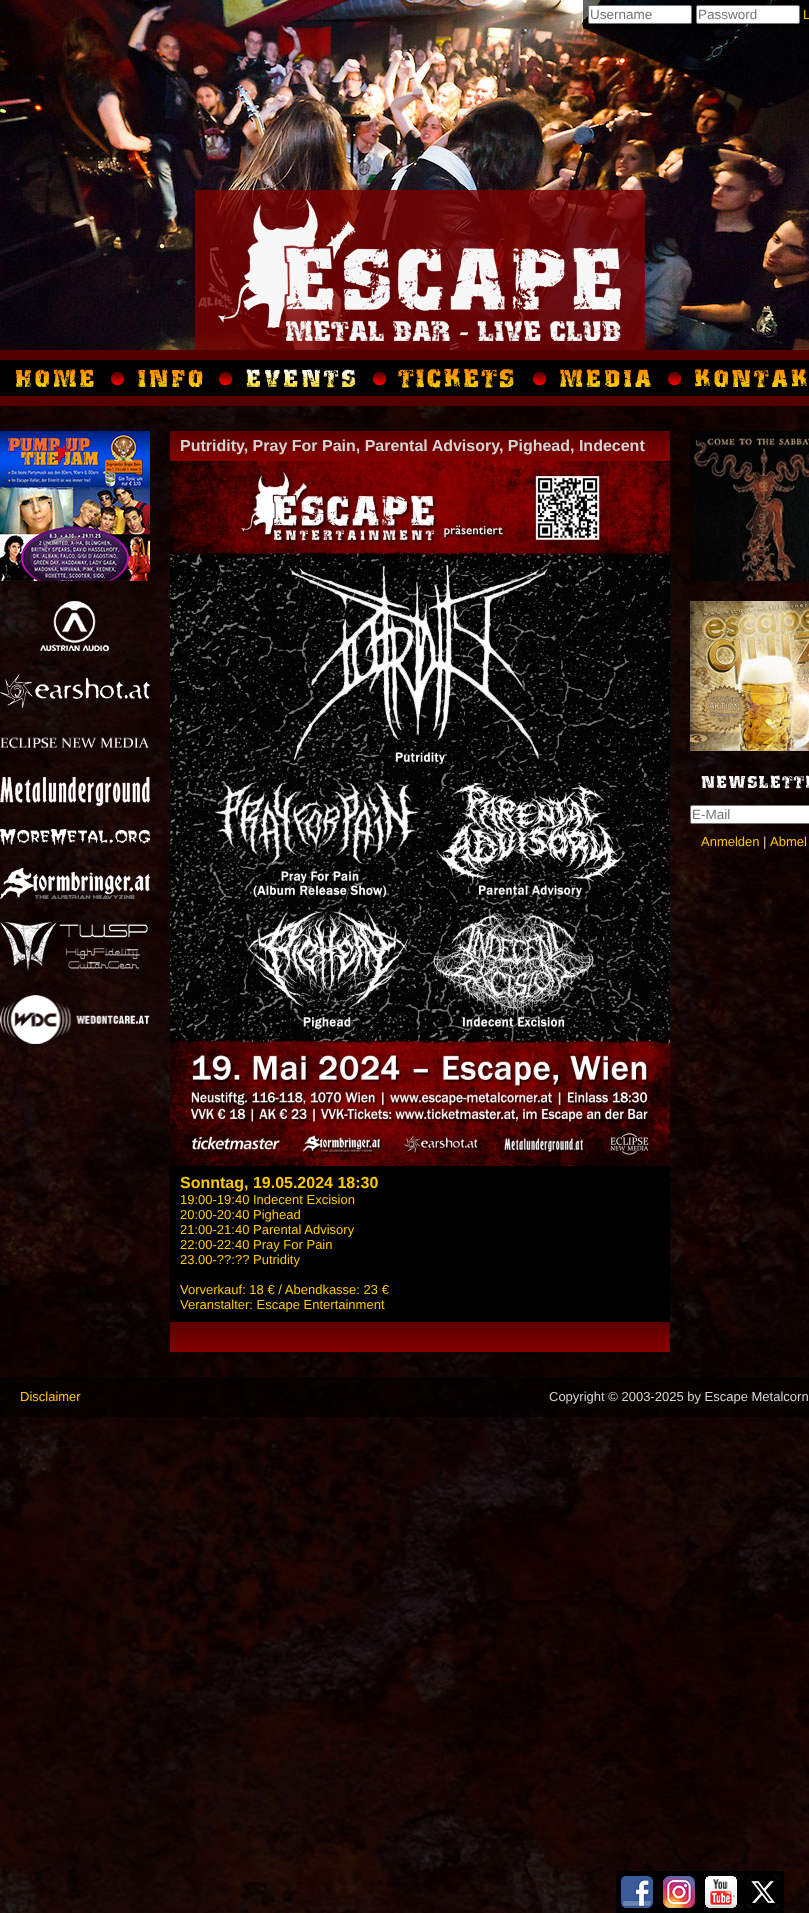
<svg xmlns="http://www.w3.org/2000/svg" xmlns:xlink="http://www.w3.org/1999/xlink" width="809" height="1913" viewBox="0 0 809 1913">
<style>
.cls-1{font:13.5px Liberation Sans;fill:#757575}
.cls-2{font:13px Liberation Sans;fill:#fbc700}
.cls-3{font:bold 16px Liberation Sans;fill:#d4d4d4}
.cls-4{font:bold 16px Liberation Sans;fill:#fbc700}
.cls-5{font:13px Liberation Sans;fill:#d4d4d4}
</style>
<rect width="100%" height="100%" fill="#ffffff"/>
<image xlink:href="image0.png" x="0" y="0" width="809" height="350"/>
<rect fill="#000000" fill-opacity="0.6" x="583" y="0" width="226" height="29"/>
<rect fill="#ffffff" stroke="#767676" x="588.5" y="5.5" width="103" height="18" rx="1.5"/>
<rect fill="#ffffff" stroke="#767676" x="696.5" y="5.5" width="103" height="18" rx="1.5"/>
<rect fill="#7b0000" fill-opacity="0.8" x="195" y="190" width="450" height="160"/>
<image xlink:href="image1.png" x="218" y="199" width="403" height="142"/>
<rect fill="#550000" x="0" y="350" width="809" height="56"/>
<rect fill="#000000" x="0" y="360" width="809" height="36"/>
<image xlink:href="image2.png" x="15" y="369" width="103" height="18"/>
<image xlink:href="image3.png" x="118" y="369" width="108" height="18"/>
<image xlink:href="image4.png" x="226" y="369" width="154" height="19"/>
<image xlink:href="image5.png" x="380" y="368" width="160" height="20"/>
<image xlink:href="image6.png" x="540" y="369" width="135" height="18"/>
<image xlink:href="image7.png" x="675" y="369" width="132" height="19"/>
<image xlink:href="image22.png" x="0" y="406" width="809" height="1507"/>
<image xlink:href="image8.png" x="0" y="431" width="150" height="150"/>
<image xlink:href="image9.png" x="40" y="601" width="69" height="50"/>
<image xlink:href="image10.png" x="0" y="674" width="150" height="34"/>
<image xlink:href="image11.png" x="0" y="737" width="149" height="12"/>
<image xlink:href="image12.png" x="0" y="777" width="150" height="29"/>
<image xlink:href="image13.png" x="0" y="829" width="150" height="16"/>
<image xlink:href="image14.png" x="0" y="868" width="150" height="31"/>
<image xlink:href="image15.png" x="0" y="922" width="148" height="50"/>
<image xlink:href="image16.png" x="0" y="995" width="150" height="49"/>
<rect fill="#000000" x="170" y="1166" width="500" height="156"/>
<image xlink:href="image17.png" x="170" y="431" width="500" height="30"/>
<image xlink:href="image18.png" x="170" y="461" width="500" height="705"/>
<image xlink:href="image17.png" x="170" y="1322" width="500" height="30"/>
<image xlink:href="image19.png" x="690" y="431" width="119" height="150"/>
<image xlink:href="image20.png" x="690" y="601" width="119" height="150"/>
<image xlink:href="image21.png" x="701" y="775" width="108" height="14"/>
<rect fill="#ffffff" stroke="#767676" x="690.5" y="805.5" width="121" height="18" rx="1.5"/>
<rect fill="#000000" fill-opacity="0.6" x="0" y="1377" width="809" height="40"/>
<rect fill="#000000" x="616" y="1871" width="168" height="42"/>
<image xlink:href="image23.png" x="621" y="1876" width="32" height="32"/>
<image xlink:href="image24.png" x="663" y="1876" width="32" height="32"/>
<image xlink:href="image25.png" x="705" y="1876" width="32" height="32"/>
<image xlink:href="image26.png" x="747" y="1876" width="32" height="32"/>
<text class="cls-1" x="590" y="19">Username</text>
<text class="cls-1" x="698" y="19">Password</text>
<text class="cls-2" x="803" y="19">L</text>
<text class="cls-3" x="180" y="451">Putridity, Pray For Pain, Parental Advisory, Pighead, Indecent</text>
<text class="cls-4" x="180" y="1188">Sonntag, 19.05.2024 18:30</text>
<text class="cls-2"><tspan x="180" y="1204">19:00-19:40 Indecent Excision</tspan><tspan x="180" y="1219">20:00-20:40 Pighead</tspan><tspan x="180" y="1234">21:00-21:40 Parental Advisory</tspan><tspan x="180" y="1249">22:00-22:40 Pray For Pain</tspan><tspan x="180" y="1264">23.00-??:?? Putridity</tspan></text>
<text class="cls-2"><tspan x="180" y="1294">Vorverkauf: 18 € / Abendkasse: 23 €</tspan><tspan x="180" y="1309">Veranstalter: Escape Entertainment</tspan></text>
<text class="cls-1" x="692" y="819">E-Mail</text>
<text class="cls-2" x="701" y="846">Anmelden</text>
<text class="cls-5" x="763" y="846">|</text>
<text class="cls-2" x="770" y="846">Abmel</text>
<text class="cls-2" x="20" y="1401">Disclaimer</text>
<text class="cls-5" x="549" y="1401">Copyright © 2003-2025 by Escape Metalcorn</text>
</svg>
